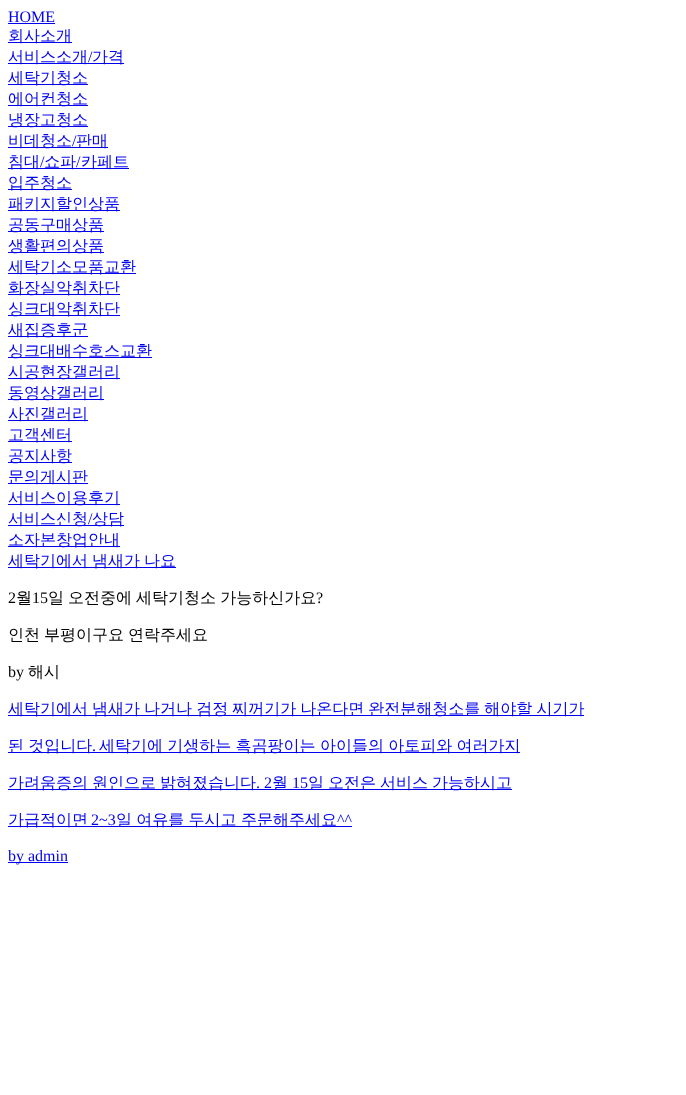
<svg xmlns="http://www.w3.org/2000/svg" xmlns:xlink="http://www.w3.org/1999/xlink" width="686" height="1095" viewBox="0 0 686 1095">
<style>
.cls-1{font:16px Liberation Serif;fill:#0000ee}
.cls-2{font:500 16px WenQuanYi Zen Hei;fill:#0000ee}
.cls-3{font:16px Liberation Serif;fill:#000000}
.cls-4{font:500 16px WenQuanYi Zen Hei;fill:#000000}
</style>
<rect width="100%" height="100%" fill="#ffffff"/>
<rect fill="#0000ee" x="8" y="23" width="47" height="1"/>
<rect fill="#0000ee" x="8" y="42" width="64" height="1"/>
<rect fill="#0000ee" x="8" y="63" width="116" height="1"/>
<rect fill="#0000ee" x="8" y="84" width="80" height="1"/>
<rect fill="#0000ee" x="8" y="105" width="80" height="1"/>
<rect fill="#0000ee" x="8" y="126" width="80" height="1"/>
<rect fill="#0000ee" x="8" y="147" width="100" height="1"/>
<rect fill="#0000ee" x="8" y="168" width="121" height="1"/>
<rect fill="#0000ee" x="8" y="189" width="64" height="1"/>
<rect fill="#0000ee" x="8" y="210" width="112" height="1"/>
<rect fill="#0000ee" x="8" y="231" width="96" height="1"/>
<rect fill="#0000ee" x="8" y="252" width="96" height="1"/>
<rect fill="#0000ee" x="8" y="273" width="128" height="1"/>
<rect fill="#0000ee" x="8" y="294" width="112" height="1"/>
<rect fill="#0000ee" x="8" y="315" width="112" height="1"/>
<rect fill="#0000ee" x="8" y="336" width="80" height="1"/>
<rect fill="#0000ee" x="8" y="357" width="144" height="1"/>
<rect fill="#0000ee" x="8" y="378" width="112" height="1"/>
<rect fill="#0000ee" x="8" y="399" width="96" height="1"/>
<rect fill="#0000ee" x="8" y="420" width="80" height="1"/>
<rect fill="#0000ee" x="8" y="441" width="64" height="1"/>
<rect fill="#0000ee" x="8" y="462" width="64" height="1"/>
<rect fill="#0000ee" x="8" y="483" width="80" height="1"/>
<rect fill="#0000ee" x="8" y="504" width="112" height="1"/>
<rect fill="#0000ee" x="8" y="525" width="116" height="1"/>
<rect fill="#0000ee" x="8" y="546" width="112" height="1"/>
<rect fill="#0000ee" x="8" y="567" width="168" height="1"/>
<rect fill="#0000ee" x="8" y="715" width="576" height="1"/>
<rect fill="#0000ee" x="8" y="752" width="512" height="1"/>
<rect fill="#0000ee" x="8" y="789" width="504" height="1"/>
<rect fill="#0000ee" x="8" y="826" width="344" height="1"/>
<rect fill="#0000ee" x="8" y="862" width="60" height="1"/>
<text class="cls-1" x="8" y="22">HOME</text>
<text class="cls-2"><tspan x="8" y="41">회사소개</tspan><tspan x="8" y="62">서비스소개</tspan></text>
<text class="cls-1" x="88" y="62">/</text>
<text class="cls-2" x="92" y="62">가격</text>
<text class="cls-2"><tspan x="8" y="83">세탁기청소</tspan><tspan x="8" y="104">에어컨청소</tspan><tspan x="8" y="125">냉장고청소</tspan><tspan x="8" y="146">비데청소</tspan></text>
<text class="cls-1" x="72" y="146">/</text>
<text class="cls-2" x="76" y="146">판매</text>
<text class="cls-2" x="8" y="167">침대</text>
<text class="cls-1" x="40" y="167">/</text>
<text class="cls-2" x="44" y="167">쇼파</text>
<text class="cls-1" x="76" y="167">/</text>
<text class="cls-2" x="81" y="167">카페트</text>
<text class="cls-2"><tspan x="8" y="188">입주청소</tspan><tspan x="8" y="209">패키지할인상품</tspan><tspan x="8" y="230">공동구매상품</tspan><tspan x="8" y="251">생활편의상품</tspan><tspan x="8" y="272">세탁기소모품교환</tspan><tspan x="8" y="293">화장실악취차단</tspan><tspan x="8" y="314">싱크대악취차단</tspan><tspan x="8" y="335">새집증후군</tspan><tspan x="8" y="356">싱크대배수호스교환</tspan><tspan x="8" y="377">시공현장갤러리</tspan><tspan x="8" y="398">동영상갤러리</tspan><tspan x="8" y="419">사진갤러리</tspan><tspan x="8" y="440">고객센터</tspan><tspan x="8" y="461">공지사항</tspan><tspan x="8" y="482">문의게시판</tspan><tspan x="8" y="503">서비스이용후기</tspan><tspan x="8" y="524">서비스신청</tspan></text>
<text class="cls-1" x="88" y="524">/</text>
<text class="cls-2" x="92" y="524">상담</text>
<text class="cls-2"><tspan x="8" y="545">소자본창업안내</tspan><tspan x="8" y="566" word-spacing="-0.75">세탁기에서 냄새가 나요</tspan></text>
<text class="cls-3" x="8" y="603">2</text>
<text class="cls-4" x="16" y="603">월</text>
<text class="cls-3" x="32" y="603">15</text>
<text class="cls-4" x="48" y="603" word-spacing="-0.75">일 오전중에 세탁기청소 가능하신가요</text>
<text class="cls-3" x="316" y="603">?</text>
<text class="cls-4" x="8" y="640" word-spacing="-0.75">인천 부평이구요 연락주세요</text>
<text class="cls-3" x="8" y="677">by</text>
<text class="cls-4" x="28" y="677">해시</text>
<text class="cls-2" x="8" y="714" word-spacing="-0.75">세탁기에서 냄새가 나거나 검정 찌꺼기가 나온다면 완전분해청소를 해야할 시기가</text>
<text class="cls-2" x="8" y="751" word-spacing="-0.5">된 것입니다</text>
<text class="cls-1" x="92" y="751">.</text>
<text class="cls-2" x="99" y="751" word-spacing="-0.5">세탁기에 기생하는 흑곰팡이는 아이들의 아토피와 여러가지</text>
<text class="cls-2" x="8" y="788">가려움증의</text>
<text class="cls-2" x="92" y="788">원인으로</text>
<text class="cls-2" x="160" y="788">밝혀졌습니다</text>
<text class="cls-1" x="256" y="788">. 2</text>
<text class="cls-2" x="272" y="788">월</text>
<text class="cls-1" x="292" y="788">15</text>
<text class="cls-2" x="308" y="788">일</text>
<text class="cls-2" x="328" y="788">오전은</text>
<text class="cls-2" x="380" y="788">서비스</text>
<text class="cls-2" x="432" y="788">가능하시고</text>
<text class="cls-2" x="8" y="825">가급적이면</text>
<text class="cls-1" x="91" y="825">2~3</text>
<text class="cls-2" x="116" y="825" word-spacing="-0.5">일 여유를 두시고 주문해주세요</text>
<text class="cls-1" x="337" y="825">^^</text>
<text class="cls-1" x="8" y="861">by admin</text>
</svg>
